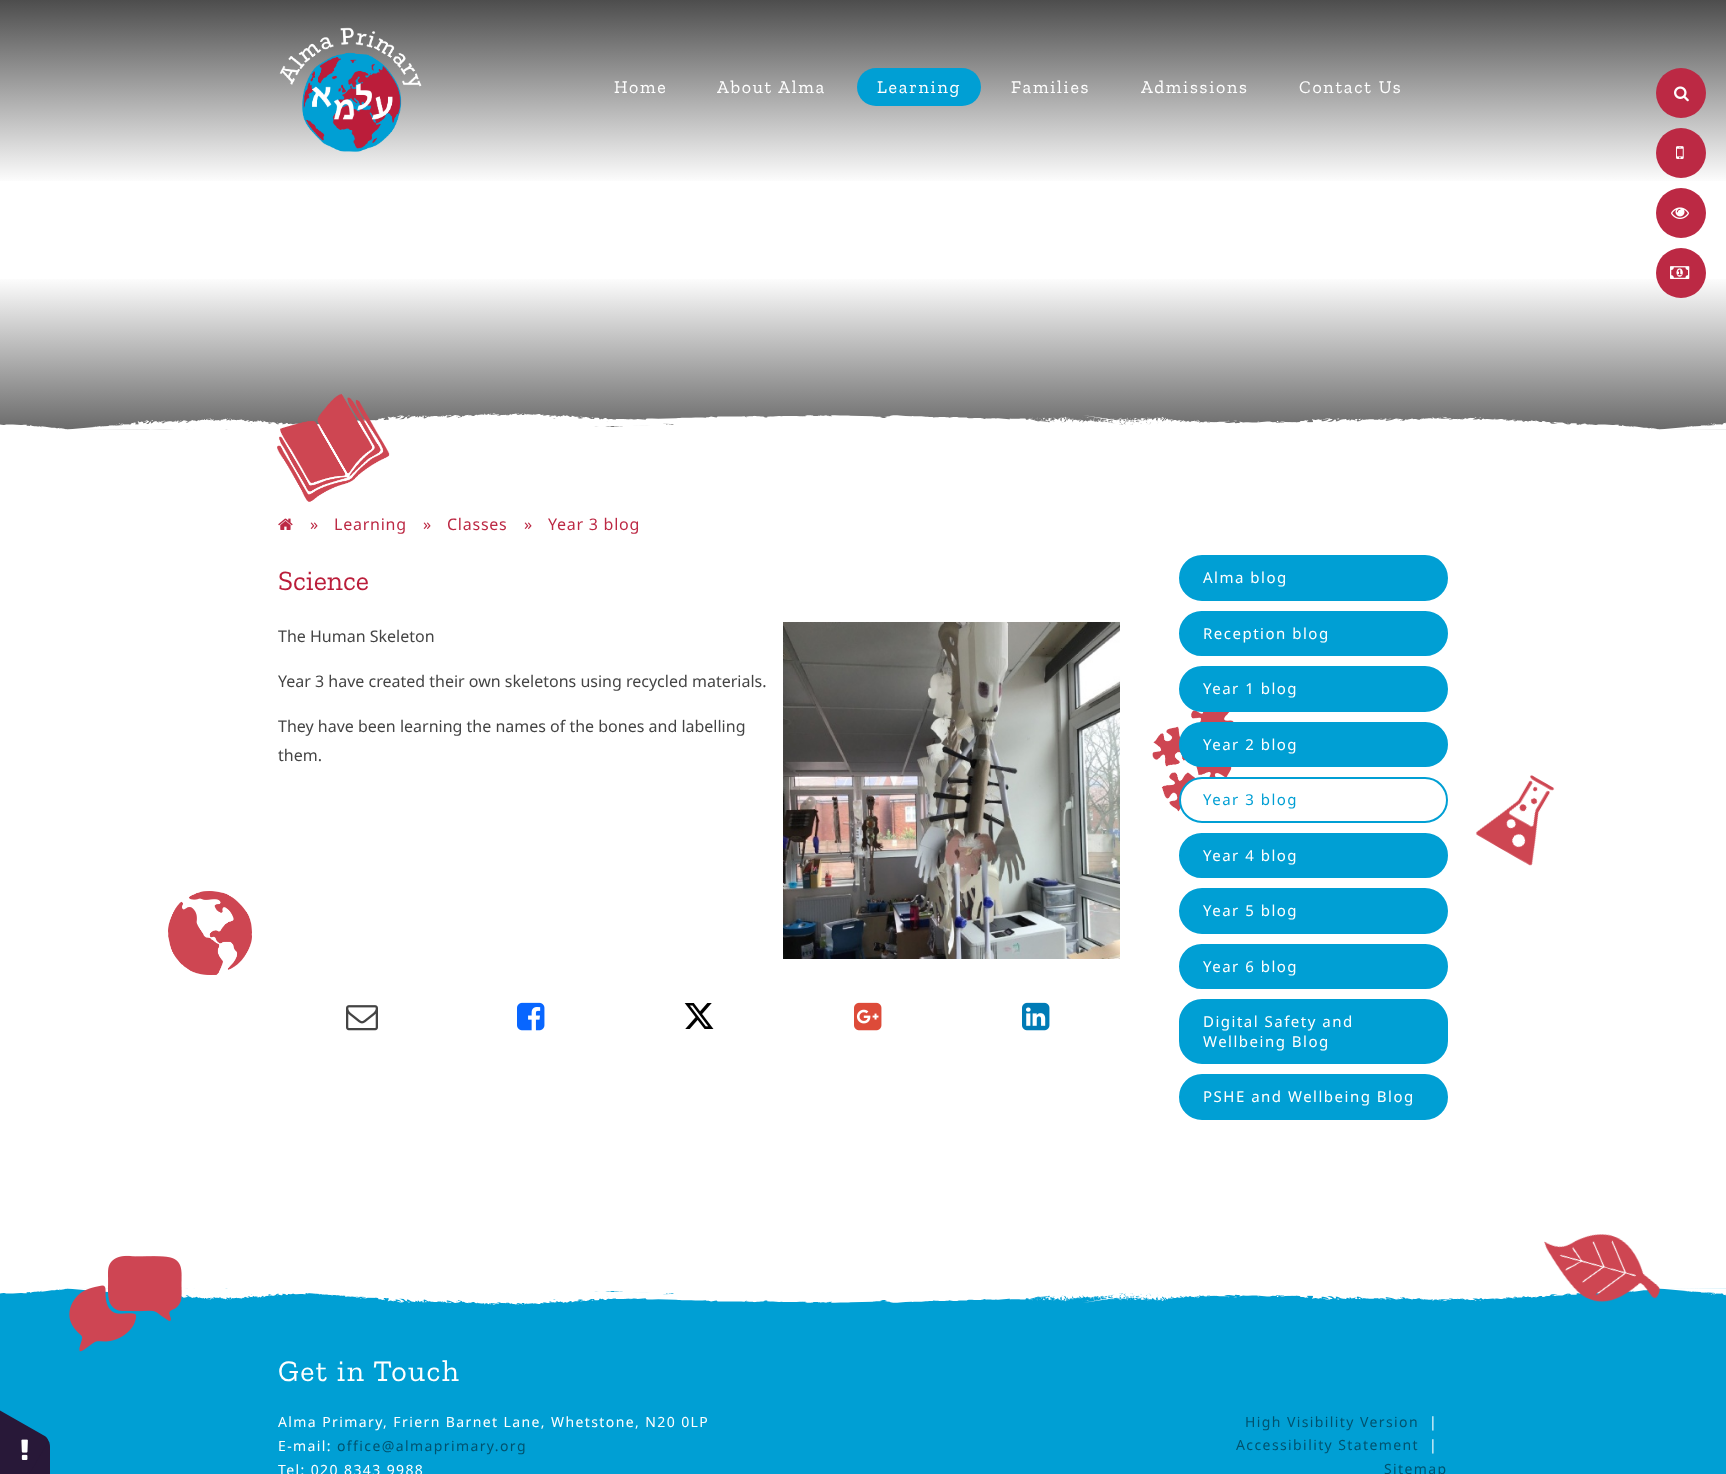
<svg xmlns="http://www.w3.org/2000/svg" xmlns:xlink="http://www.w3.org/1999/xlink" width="1726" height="1474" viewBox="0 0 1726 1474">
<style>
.cls-1{font:18px Zilla Slab;letter-spacing:1.75px;fill:#ffffff}
.cls-2{font:16px Noto Sans;fill:#bc2944}
.cls-3{font:16px Noto Sans;letter-spacing:0.75px;fill:#bc2944}
.cls-4{font:28px Zilla Slab;fill:#bb1d3a}
.cls-5{font:16px Noto Sans;fill:#444444}
.cls-6{font:15px Noto Sans;letter-spacing:1.5px;fill:#ffffff}
.cls-7{font:15px Noto Sans;letter-spacing:1.5px;fill:#009fd4}
.cls-8{font:30px Zilla Slab;letter-spacing:1.5px;fill:#ffffff}
.cls-9{font:14px Noto Sans;letter-spacing:1.4px;fill:#ffffff}
.cls-10{font:14px Noto Sans;letter-spacing:1.4px;fill:#00526e}
</style>
<defs>
<linearGradient id="g1" gradientUnits="userSpaceOnUse" x1="863" y1="184" x2="863" y2="0"><stop offset="0" stop-color="#ffffff"/><stop offset="1" stop-color="#4d4d4d"/></linearGradient>
<linearGradient id="g2" gradientUnits="userSpaceOnUse" x1="863" y1="276" x2="863" y2="460"><stop offset="0" stop-color="#ffffff"/><stop offset="1" stop-color="#4d4d4d"/></linearGradient>
</defs>
<rect width="100%" height="100%" fill="#ffffff"/>
<rect fill="#009fd4" x="0" y="1288" width="1726" height="186"/>
<path fill="#281838" d="M50 1447V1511C50 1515 48 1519 46 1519H-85C-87 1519-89 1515-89 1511V1447C-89 1442-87 1439-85 1439H46C48 1439 50 1442 50 1447Z"/>
<path fill="#281838" d="M-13 1403L43 1435C47 1437 49 1440 48 1442L-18 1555C-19 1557-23 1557-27 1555L-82 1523C-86 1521-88 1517-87 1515L-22 1402C-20 1400-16 1401-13 1403Z"/>
<image xlink:href="image0.png" x="21" y="1439" width="7" height="21"/>
<rect fill="url(#g1)" x="0" y="0" width="1726" height="181"/>
<rect fill="url(#g2)" x="0" y="279" width="1726" height="151"/>
<image xlink:href="image1.png" x="279" y="27" width="143" height="125"/>
<rect fill="#009fd4" x="857" y="68" width="124" height="38" rx="19"/>
<circle fill="#bc2944" cx="1681" cy="93" r="25"/>
<image xlink:href="image2.png" x="1674" y="86" width="15" height="16"/>
<circle fill="#bc2944" cx="1681" cy="153" r="25"/>
<image xlink:href="image3.png" x="1676" y="146" width="8" height="13"/>
<circle fill="#bc2944" cx="1681" cy="213" r="25"/>
<image xlink:href="image4.png" x="1671" y="207" width="18" height="12"/>
<circle fill="#bc2944" cx="1681" cy="273" r="25"/>
<image xlink:href="image5.png" x="1670" y="266" width="20" height="13"/>
<image xlink:href="image6.png" x="0" y="413" width="1726" height="47"/>
<image xlink:href="image7.png" x="277" y="394" width="113" height="108"/>
<image xlink:href="image8.png" x="278" y="518" width="15" height="12"/>
<image xlink:href="image9.png" x="783" y="622" width="337" height="337"/>
<image xlink:href="image10.png" x="346" y="1005" width="32" height="26"/>
<image xlink:href="image11.png" x="517" y="1002" width="28" height="29"/>
<image xlink:href="image12.png" x="684" y="1003" width="30" height="26"/>
<image xlink:href="image13.png" x="854" y="1002" width="28" height="29"/>
<image xlink:href="image14.png" x="1022" y="1002" width="28" height="29"/>
<image xlink:href="image15.png" x="1152" y="710" width="82" height="102"/>
<rect fill="#009fd4" stroke="#009fd4" stroke-width="2" x="1180" y="556" width="267" height="44" rx="22"/>
<rect fill="#009fd4" stroke="#009fd4" stroke-width="2" x="1180" y="612" width="267" height="43" rx="21.5"/>
<rect fill="#009fd4" stroke="#009fd4" stroke-width="2" x="1180" y="667" width="267" height="44" rx="22"/>
<rect fill="#009fd4" stroke="#009fd4" stroke-width="2" x="1180" y="723" width="267" height="43" rx="21.5"/>
<rect fill="#ffffff" stroke="#009fd4" stroke-width="2" x="1180" y="778" width="267" height="44" rx="22"/>
<rect fill="#009fd4" stroke="#009fd4" stroke-width="2" x="1180" y="834" width="267" height="43" rx="21.5"/>
<rect fill="#009fd4" stroke="#009fd4" stroke-width="2" x="1180" y="889" width="267" height="44" rx="22"/>
<rect fill="#009fd4" stroke="#009fd4" stroke-width="2" x="1180" y="945" width="267" height="43" rx="21.5"/>
<rect fill="#009fd4" stroke="#009fd4" stroke-width="2" x="1180" y="1000" width="267" height="63" rx="22"/>
<rect fill="#009fd4" stroke="#009fd4" stroke-width="2" x="1180" y="1075" width="267" height="44" rx="22"/>
<image xlink:href="image16.png" x="1475" y="775" width="80" height="91"/>
<image xlink:href="image17.png" x="168" y="891" width="84" height="84"/>
<image xlink:href="image20.png" x="0" y="1275" width="1726" height="30"/>
<image xlink:href="image18.png" x="69" y="1255" width="113" height="97"/>
<image xlink:href="image19.png" x="1544" y="1234" width="117" height="68"/>
<text class="cls-1" x="614" y="93">Home</text>
<text class="cls-1" x="717" y="93">About Alma</text>
<text class="cls-1" x="877" y="93">Learning</text>
<text class="cls-1" x="1011" y="93">Families</text>
<text class="cls-1" x="1141" y="93">Admissions</text>
<text class="cls-1" x="1299" y="93">Contact Us</text>
<text class="cls-2" x="310" y="530">»</text>
<text class="cls-3" x="334" y="530">Learning</text>
<text class="cls-2" x="423" y="530">»</text>
<text class="cls-3" x="447" y="530">Classes</text>
<text class="cls-2" x="524" y="530">»</text>
<text class="cls-3" x="548" y="530">Year 3 blog</text>
<text class="cls-4" x="278" y="590">Science</text>
<text class="cls-5" x="278" y="642">The Human Skeleton</text>
<text class="cls-5" x="278" y="687">Year 3 have created their own skeletons using recycled materials.</text>
<text class="cls-5"><tspan x="278" y="732">They have been learning the names of the bones and labelling</tspan><tspan x="278" y="761">them.</tspan></text>
<text class="cls-6" x="1203" y="583">Alma blog</text>
<text class="cls-6" x="1203" y="639">Reception blog</text>
<text class="cls-6" x="1203" y="694">Year 1 blog</text>
<text class="cls-6" x="1203" y="750">Year 2 blog</text>
<text class="cls-7" x="1203" y="805">Year 3 blog</text>
<text class="cls-6" x="1203" y="861">Year 4 blog</text>
<text class="cls-6" x="1203" y="916">Year 5 blog</text>
<text class="cls-6" x="1203" y="972">Year 6 blog</text>
<text class="cls-6"><tspan x="1203" y="1027">Digital Safety and</tspan><tspan x="1203" y="1047">Wellbeing Blog</tspan></text>
<text class="cls-6" x="1203" y="1102">PSHE and Wellbeing Blog</text>
<text class="cls-8" x="278" y="1381">Get in Touch</text>
<text class="cls-9"><tspan x="278" y="1427">Alma Primary, Friern Barnet Lane, Whetstone, N20 0LP</tspan><tspan x="278" y="1451">E-mail:</tspan></text>
<text class="cls-10" x="337" y="1451">office@almaprimary.org</text>
<text class="cls-9" x="278" y="1475">Tel: 020 8343 9988</text>
<text class="cls-10" x="1245" y="1427">High Visibility Version</text>
<text class="cls-9" x="1429" y="1427">|</text>
<text class="cls-10" x="1236" y="1450">Accessibility Statement</text>
<text class="cls-9" x="1429" y="1450">|</text>
<text class="cls-10" x="1384" y="1474">Sitemap</text>
</svg>
